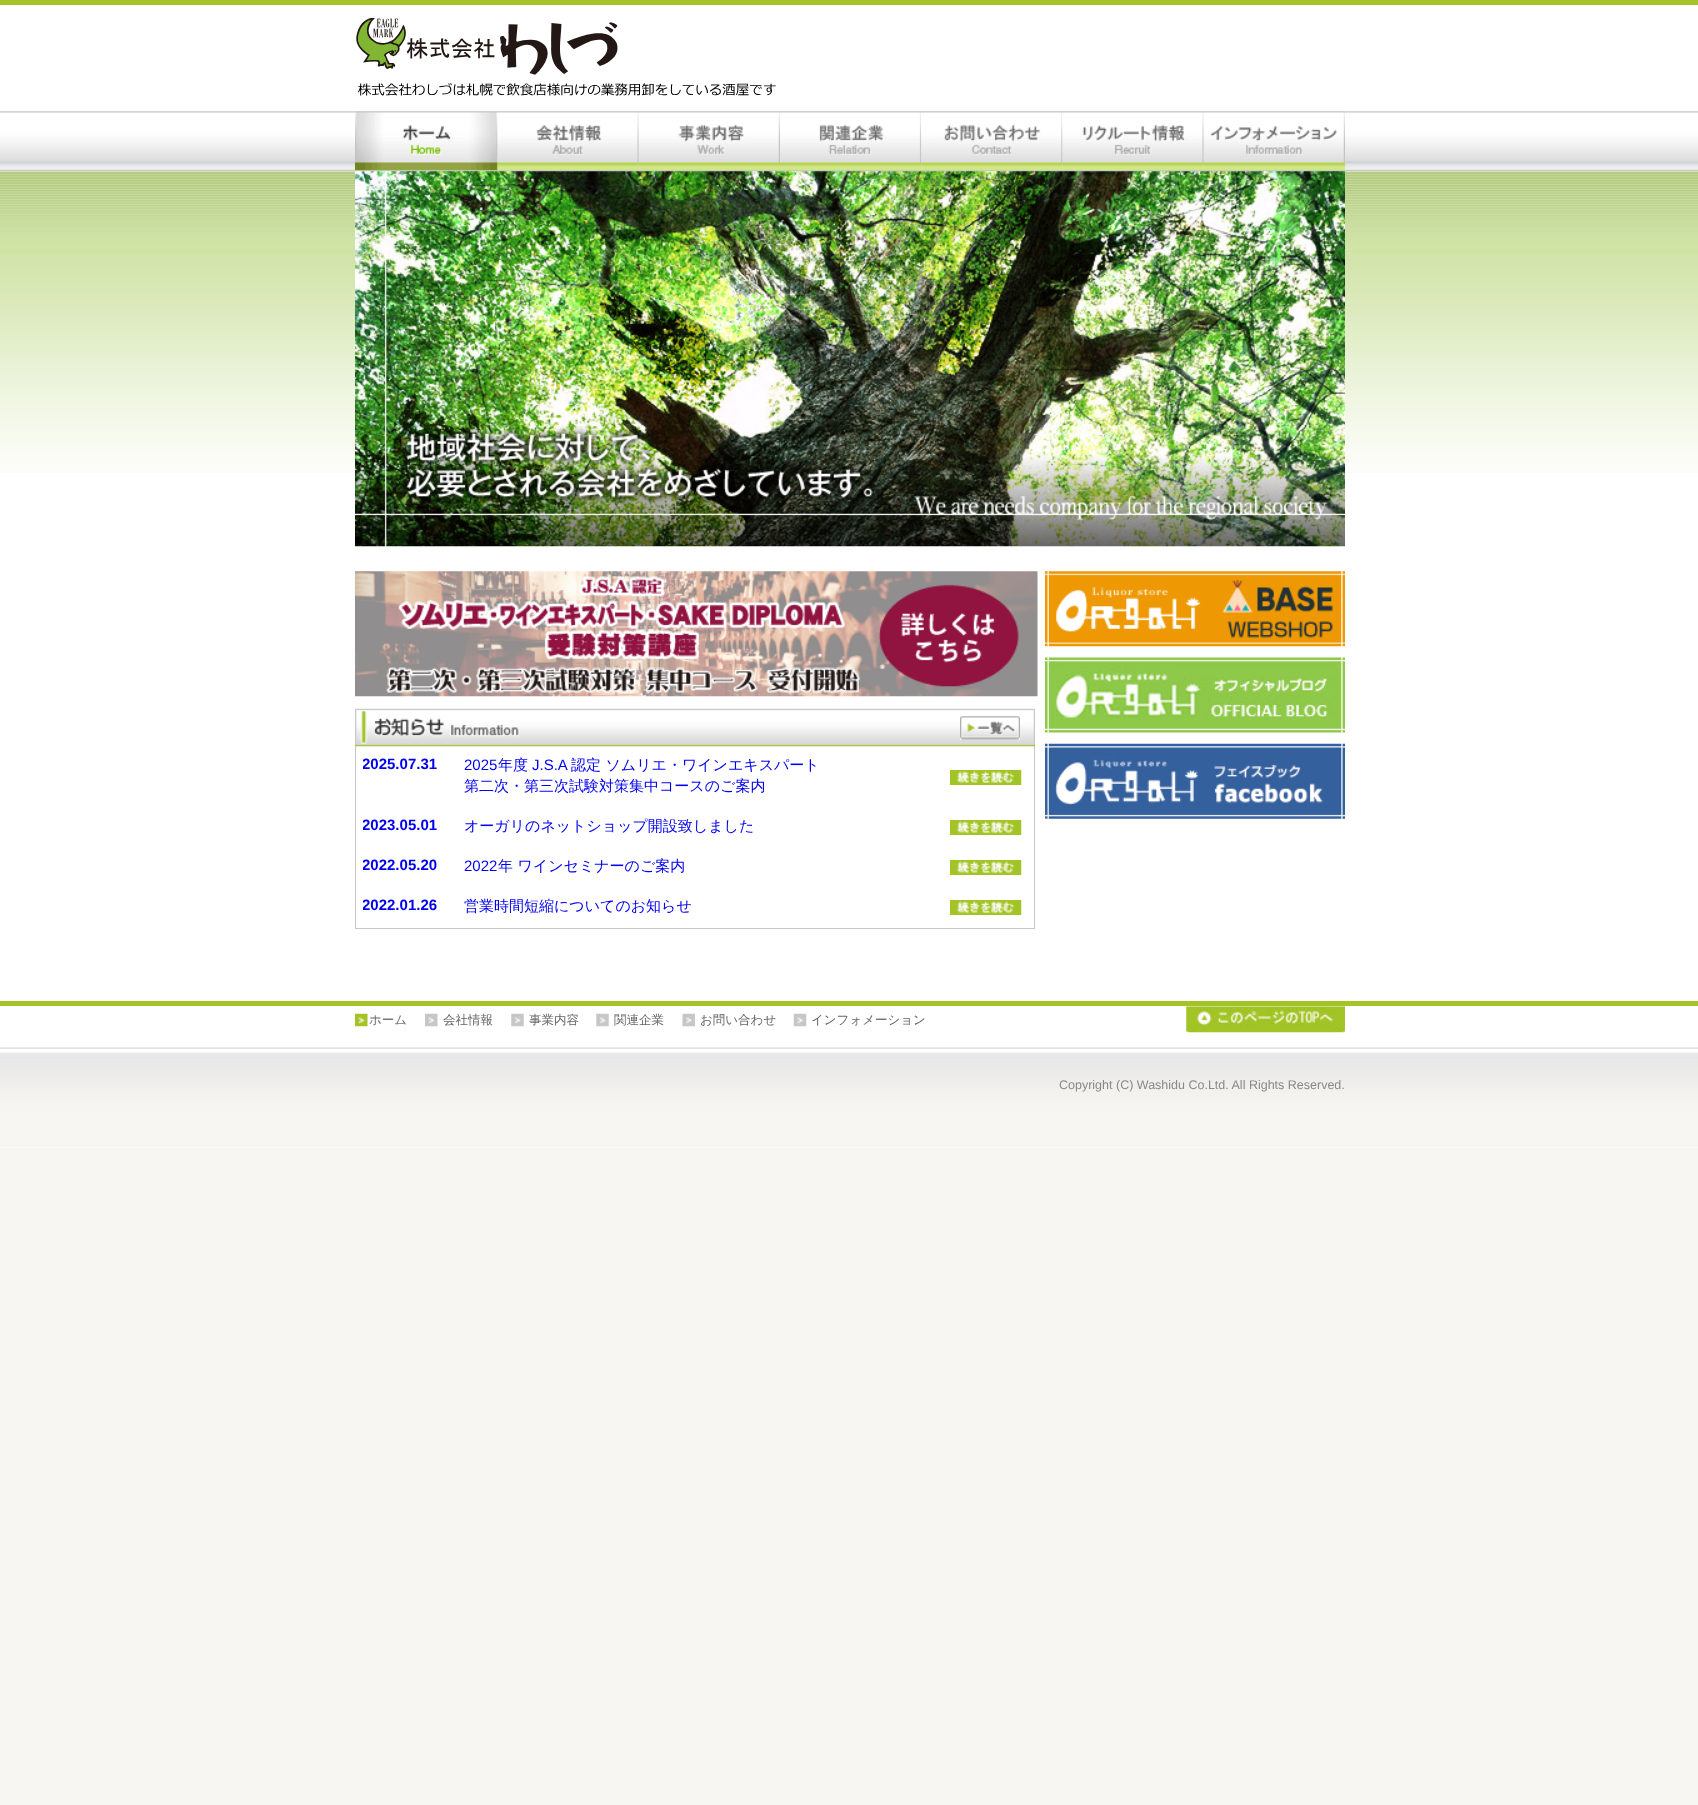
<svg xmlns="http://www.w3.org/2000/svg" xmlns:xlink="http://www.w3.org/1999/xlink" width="1698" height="1805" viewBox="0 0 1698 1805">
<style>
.cls-1{font:bold 15px Liberation Sans;fill:#0000ee}
.cls-2{font:15px Liberation Sans;fill:#0000ee}
.cls-3{font:500 15px WenQuanYi Zen Hei;fill:#0000ee}
.cls-4{font:500 12.5px WenQuanYi Zen Hei;fill:#666666}
.cls-5{font:12.5px Liberation Sans;fill:#888888}
</style>
<defs>
<clipPath id="clip1"><rect x="363" y="755" width="100" height="18"/></clipPath>
<clipPath id="clip2"><rect x="363" y="816" width="100" height="18"/></clipPath>
<clipPath id="clip3"><rect x="363" y="856" width="100" height="18"/></clipPath>
<clipPath id="clip4"><rect x="363" y="896" width="100" height="18"/></clipPath>
</defs>
<rect width="100%" height="100%" fill="#f7f6f2"/>
<rect fill="#ffffff" x="0" y="5" width="1698" height="1143"/>
<rect fill="#a2c426" x="0" y="0" width="1698" height="5"/>
<image xlink:href="image0.png" x="356" y="18" width="420" height="78"/>
<image xlink:href="image1.png" x="0" y="111" width="1698" height="61"/>
<image xlink:href="image2.png" x="355" y="111" width="143" height="60"/>
<image xlink:href="image3.png" x="497" y="111" width="142" height="60"/>
<image xlink:href="image4.png" x="638" y="111" width="142" height="60"/>
<image xlink:href="image5.png" x="780" y="111" width="142" height="60"/>
<image xlink:href="image6.png" x="921" y="111" width="142" height="60"/>
<image xlink:href="image7.png" x="1062" y="111" width="142" height="60"/>
<image xlink:href="image8.png" x="1203" y="111" width="142" height="60"/>
<image xlink:href="image9.png" x="0" y="171" width="1698" height="302"/>
<image xlink:href="image10.png" x="355" y="171" width="990" height="376"/>
<image xlink:href="image11.png" x="1045" y="571" width="300" height="76"/>
<image xlink:href="image12.png" x="1045" y="657" width="300" height="76"/>
<image xlink:href="image13.png" x="1045" y="743" width="300" height="76"/>
<image xlink:href="image14.png" x="355" y="571" width="683" height="126"/>
<rect fill="#c7c7c7" x="1034" y="746" width="1" height="183"/>
<rect fill="#c7c7c7" x="355" y="928" width="680" height="1"/>
<rect fill="#c7c7c7" x="355" y="746" width="1" height="183"/>
<image xlink:href="image15.png" x="355" y="708" width="680" height="39"/>
<image xlink:href="image16.png" x="960" y="716" width="60" height="24"/>
<image xlink:href="image17.png" x="950" y="770" width="72" height="15"/>
<image xlink:href="image17.png" x="950" y="820" width="72" height="15"/>
<image xlink:href="image17.png" x="950" y="860" width="72" height="15"/>
<image xlink:href="image17.png" x="950" y="900" width="72" height="15"/>
<rect fill="#a2c426" x="0" y="1001" width="1698" height="5"/>
<image xlink:href="image18.png" x="355" y="1013" width="13" height="14"/>
<image xlink:href="image19.png" x="425" y="1013" width="13" height="14"/>
<image xlink:href="image20.png" x="511" y="1013" width="13" height="14"/>
<image xlink:href="image20.png" x="596" y="1013" width="13" height="14"/>
<image xlink:href="image21.png" x="682" y="1013" width="13" height="14"/>
<image xlink:href="image22.png" x="793" y="1013" width="14" height="14"/>
<image xlink:href="image23.png" x="1186" y="1006" width="159" height="27"/>
<image xlink:href="image24.png" x="0" y="1047" width="1698" height="101"/>
<g clip-path="url(#clip1)">
<text class="cls-1" x="362" y="769">2025.07.31</text>
</g>
<text class="cls-2" x="464" y="770">2025</text>
<text class="cls-3" x="498" y="770">年度</text>
<text class="cls-2" x="532" y="770">J.S.A</text>
<text class="cls-3" x="571" y="770">認定 ソムリエ・ワインエキスパート</text>
<text class="cls-3" x="464" y="791">第二次・第三次試験対策集中コースのご案内</text>
<g clip-path="url(#clip2)">
<text class="cls-1" x="362" y="830">2023.05.01</text>
</g>
<text class="cls-3" x="464" y="831">オーガリのネットショップ開設致しました</text>
<g clip-path="url(#clip3)">
<text class="cls-1" x="362" y="870">2022.05.20</text>
</g>
<text class="cls-2" x="464" y="871">2022</text>
<text class="cls-3" x="498" y="871">年 ワインセミナーのご案内</text>
<g clip-path="url(#clip4)">
<text class="cls-1" x="362" y="910">2022.01.26</text>
</g>
<text class="cls-3" x="464" y="911">営業時間短縮についてのお知らせ</text>
<text class="cls-4" x="369" y="1024">ホーム</text>
<text class="cls-4" x="443" y="1024">会社情報</text>
<text class="cls-4" x="529" y="1024">事業内容</text>
<text class="cls-4" x="614" y="1024">関連企業</text>
<text class="cls-4" x="700" y="1024">お問い合わせ</text>
<text class="cls-4" x="811" y="1024">インフォメーション</text>
<text class="cls-5" x="1059" y="1089">Copyright (C) Washidu Co.Ltd. All Rights Reserved.</text>
</svg>
